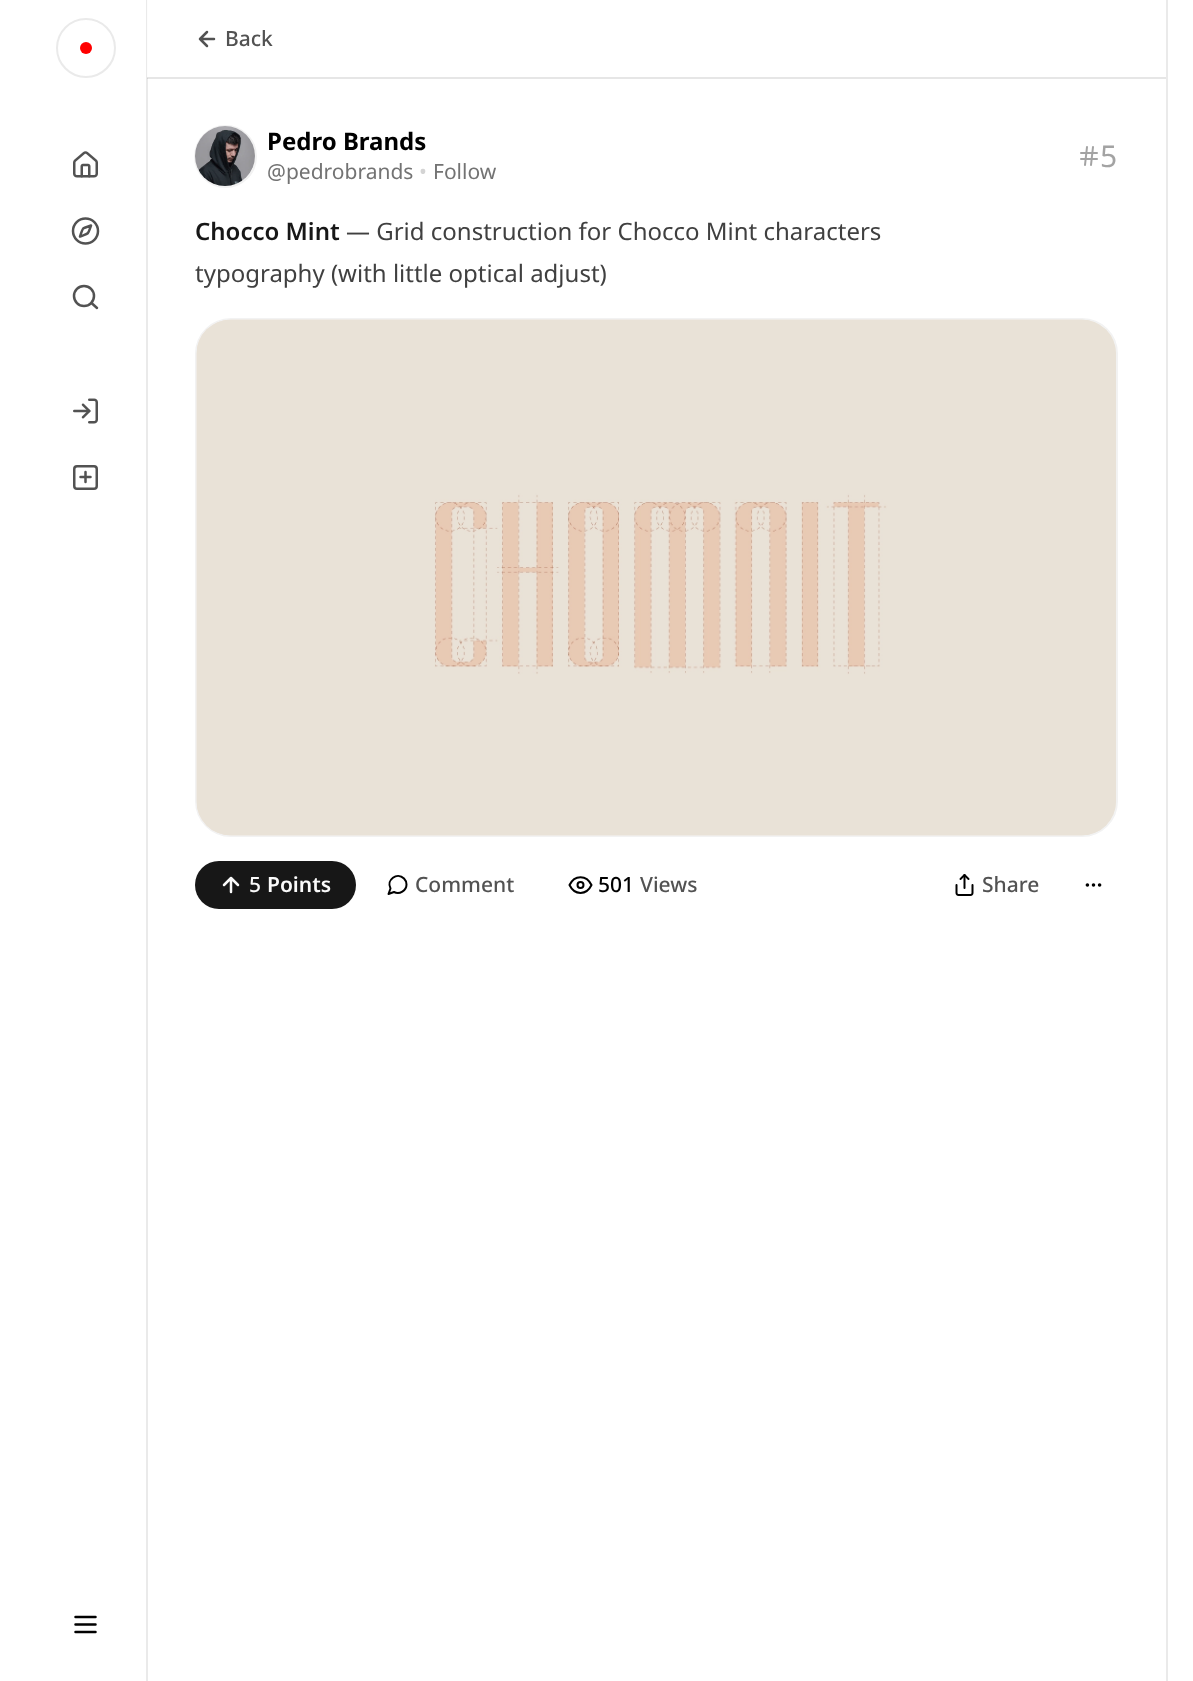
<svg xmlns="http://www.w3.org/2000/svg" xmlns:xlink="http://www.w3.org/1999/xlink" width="1193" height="1681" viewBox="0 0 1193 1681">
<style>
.cls-1{font:500 21px Noto Sans;fill:#525252}
.cls-2{font:bold 24px Noto Sans;fill:#000000}
.cls-3{font:21px Noto Sans;fill:#737373}
.cls-4{font:21px Noto Sans;fill:#d4d4d4}
.cls-5{font:30px Noto Sans;fill:#a3a3a3}
.cls-6{font:600 24px Noto Sans;fill:#171717}
.cls-7{font:24px Noto Sans;fill:#404040}
.cls-8{font:500 21px Noto Sans;fill:#fafafa}
.cls-9{font:600 21px Noto Sans;fill:#fafafa}
.cls-10{font:500 21px Noto Sans;fill:#000000}
</style>
<rect width="100%" height="100%" fill="#ffffff"/>
<rect fill="#e6e6e6" x="147" y="77" width="1019" height="2"/>
<rect fill="#eaeaea" x="146" y="0" width="2" height="1681"/>
<rect fill="#d3d3d3" x="147" y="77" width="1" height="2"/>
<rect fill="#fdfdfd" x="147" y="0" width="1" height="78"/>
<rect fill="#e4e4e4" x="147" y="77" width="1" height="1"/>
<circle fill="none" stroke="#eaeaea" stroke-width="2" cx="86" cy="48" r="29"/>
<circle fill="#ff0000" cx="86" cy="48" r="6"/>
<image xlink:href="image0.png" x="73" y="151" width="25" height="27"/>
<path fill="none" stroke="#525252" stroke-width="2.5" stroke-linecap="round" stroke-linejoin="round" d="M91 225.5C87.5 235 89.5 233 80 236.5C81 234.5 82 228.5 84 228Z"/>
<circle fill="none" stroke="#525252" stroke-width="2.5" cx="85.5" cy="231" r="12.5"/>
<circle fill="none" stroke="#525252" stroke-width="2.5" cx="84" cy="296" r="10"/>
<path fill="none" stroke="#525252" stroke-width="2.5" stroke-linecap="round" stroke-linejoin="round" d="M97 308L91.5 303"/>
<image xlink:href="image1.png" x="73" y="398" width="25" height="26"/>
<rect fill="none" stroke="#525252" stroke-width="2.5" x="74.25" y="466.25" width="22.5" height="22.5" rx="2.75"/>
<path fill="none" stroke="#525252" stroke-width="2.5" stroke-linecap="round" stroke-linejoin="round" d="M80.5 477H90.5M85.5 472V482"/>
<path fill="none" stroke="#000000" stroke-width="2.5" stroke-linecap="round" stroke-linejoin="round" d="M75.5 1624.5H95.5M75.5 1617H95.5M75.5 1632H95.5"/>
<rect fill="#eaeaea" x="1166" y="0" width="2" height="1681"/>
<path fill="none" stroke="#525252" stroke-width="2.5" stroke-linecap="round" stroke-linejoin="round" d="M207 46L200 39L207 32M214 39H200"/>
<circle fill="none" stroke="#f2f2f2" stroke-width="2" cx="225.5" cy="156.5" r="30.5"/>
<circle fill="#ffffff" cx="225" cy="156" r="30"/>
<image xlink:href="image2.png" x="195" y="126" width="60" height="60"/>
<image xlink:href="image3.png" x="1080" y="146" width="18" height="20"/>
<rect fill="none" stroke="#f2f2f2" stroke-width="2" x="196" y="319" width="921" height="517" rx="35"/>
<image xlink:href="image4.png" x="196" y="319" width="920" height="517"/>
<image xlink:href="image5.png" x="196" y="319" width="920" height="517"/>
<rect fill="#171717" x="195" y="861" width="161" height="48" rx="24"/>
<path fill="none" stroke="#fafafa" stroke-width="2.5" stroke-linecap="round" stroke-linejoin="round" d="M231 892V878M224 885L231 878L238 885"/>
<path fill="none" stroke="#000000" stroke-width="2" stroke-linecap="round" stroke-linejoin="round" d="M406.5 884.5C406.5 890.5 399.5 895 394 892L388.5 894L390.5 888.5C386 880 397 871.5 404 878.5C405.5 880 406.5 882 406.5 884.5Z"/>
<path fill="none" stroke="#000000" stroke-width="2" stroke-linecap="round" stroke-linejoin="round" d="M569.5 885C574.5 874.5 586.5 874.5 591.5 885C586.5 895.5 574.5 895.5 569.5 885Z"/>
<circle fill="none" stroke="#000000" stroke-width="2" cx="580.5" cy="885" r="3"/>
<image xlink:href="image6.png" x="955" y="874" width="19" height="22"/>
<circle fill="none" stroke="#000000" stroke-width="1.8" cx="1093.5" cy="885" r="0.9"/>
<circle fill="none" stroke="#000000" stroke-width="1.8" cx="1099.6" cy="885" r="0.9"/>
<circle fill="none" stroke="#000000" stroke-width="1.8" cx="1087.4" cy="885" r="0.9"/>
<text class="cls-1" x="225" y="46">Back</text>
<text class="cls-2" x="267" y="150">Pedro Brands</text>
<text class="cls-3" x="267" y="179">@pedrobrands</text>
<text class="cls-4" x="419" y="179">•</text>
<text class="cls-3" x="433" y="179">Follow</text>
<text class="cls-5" x="1100" y="167">5</text>
<text class="cls-6" x="195" y="240">Chocco Mint</text>
<text class="cls-7" x="346" y="240">— Grid construction for Chocco Mint characters</text>
<text class="cls-7" x="195" y="282">typography (with little optical adjust)</text>
<text class="cls-8" x="249" y="892">5</text>
<text class="cls-9" x="267" y="892">Points</text>
<text class="cls-1" x="415" y="892">Comment</text>
<text class="cls-10" x="598" y="892">501</text>
<text class="cls-1" x="640" y="892">Views</text>
<text class="cls-1" x="982" y="892">Share</text>
</svg>
